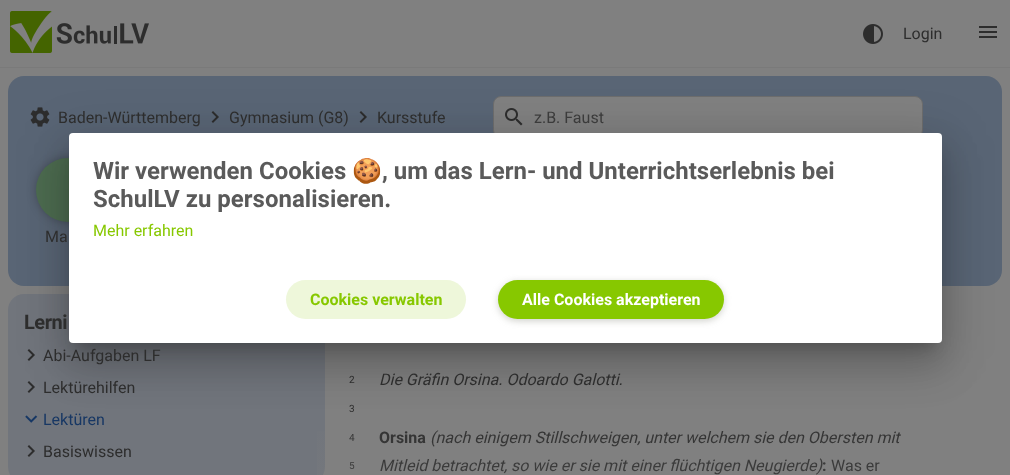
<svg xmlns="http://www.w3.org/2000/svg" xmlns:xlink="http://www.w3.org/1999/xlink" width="1010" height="475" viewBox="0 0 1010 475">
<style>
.cls-1{font:16px Roboto;fill:#2d2d2d}
.cls-2{font:16px Roboto;fill:#3b3b3b}
.cls-3{font:bold 20px Roboto;letter-spacing:-0.5px;fill:#2d2d2d}
.cls-4{font:16px Roboto;fill:#173764}
.cls-5{font:10px Roboto;fill:#2d2d2d}
.cls-6{font:italic 16px Roboto;fill:#2d2d2d}
.cls-7{font:bold 16px Roboto;fill:#2d2d2d}
.cls-8{font:bold 24px Roboto;fill:#5a5a5a}
.cls-9{font:bold 24px Noto Color Emoji;fill:#5a5a5a}
.cls-10{font:16px Roboto;fill:#87c800}
.cls-11{font:bold 16px Roboto;fill:#87c800}
.cls-12{font:bold 16px Roboto;fill:#ffffff}
</style>
<defs>
<linearGradient id="g1" gradientUnits="userSpaceOnUse" x1="664" y1="398" x2="664" y2="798"><stop offset="0" stop-color="#808080" stop-opacity="0"/><stop offset="1" stop-color="#808080"/></linearGradient>
</defs>
<rect width="100%" height="100%" fill="#808080"/>
<rect fill="#7a7a7a" x="0" y="67" width="1010" height="1"/>
<image xlink:href="image0.png" x="10" y="11" width="139" height="42"/>
<image xlink:href="image1.png" x="863" y="24" width="20" height="20"/>
<image xlink:href="image2.png" x="979" y="26" width="18" height="12"/>
<rect fill="#596575" x="8" y="76" width="994" height="210" rx="16"/>
<image xlink:href="image3.png" x="30" y="107" width="20" height="20"/>
<image xlink:href="image4.png" x="211" y="111" width="8" height="12"/>
<image xlink:href="image4.png" x="359" y="111" width="8" height="12"/>
<rect fill="#808080" stroke="#6d6d6d" x="493.5" y="96.5" width="429" height="41" rx="7.5"/>
<image xlink:href="image5.png" x="505" y="108" width="18" height="18"/>
<rect fill="#000000" fill-opacity="0.25" filter="blur(5px)" x="36" y="158" width="64" height="64" rx="32"/>
<circle fill="#4d6c50" cx="68" cy="190" r="32"/>
<rect fill="#71757c" x="8" y="294" width="317" height="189" rx="16"/>
<image xlink:href="image6.png" x="27" y="349" width="8" height="12"/>
<image xlink:href="image6.png" x="27" y="381" width="8" height="12"/>
<image xlink:href="image7.png" x="25" y="415" width="13" height="8"/>
<image xlink:href="image6.png" x="27" y="445" width="8" height="12"/>
<rect fill="#000000" fill-opacity="0.12" filter="blur(23px)" x="61" y="134" width="889" height="226" rx="12"/>
<rect fill="#000000" fill-opacity="0.14" filter="blur(19px)" x="66" y="154" width="879" height="216" rx="7"/>
<rect fill="#000000" fill-opacity="0.2" filter="blur(7.5px)" x="76" y="151" width="859" height="196"/>
<rect fill="#ffffff" x="69" y="133" width="873" height="210" rx="4"/>
<rect fill="#eef7da" x="286" y="280" width="180" height="39" rx="19.5"/>
<rect fill="#898d80" fill-opacity="0.4" filter="blur(3.5px)" x="498" y="282" width="226" height="39" rx="19.5"/>
<rect fill="#87c800" x="498" y="280" width="226" height="39" rx="19.5"/>
<text class="cls-1" x="903" y="39">Login</text>
<text class="cls-1" x="58" y="123">Baden-Württemberg</text>
<text class="cls-1" x="229" y="123">Gymnasium (G8)</text>
<text class="cls-1" x="377" y="123">Kursstufe</text>
<text class="cls-2" x="534" y="123">z.B. Faust</text>
<text class="cls-1" x="45" y="242">Ma</text>
<text class="cls-3" x="24" y="329">Lerni</text>
<text class="cls-1" x="43" y="361">Abi-Aufgaben LF</text>
<text class="cls-1" x="43" y="393">Lektürehilfen</text>
<text class="cls-4" x="43" y="425">Lektüren</text>
<text class="cls-1" x="43" y="457">Basiswissen</text>
<text class="cls-5" x="349" y="383">2</text>
<text class="cls-6" x="379" y="385">Die Gräfin Orsina. Odoardo Galotti.</text>
<text class="cls-5" x="349" y="412">3</text>
<text class="cls-5" x="349" y="441">4</text>
<text class="cls-7" x="379" y="443">Orsina</text>
<text class="cls-6" x="430" y="443">(nach einigem Stillschweigen, unter welchem sie den Obersten mit</text>
<text class="cls-5" x="349" y="469">5</text>
<text class="cls-6" x="379" y="471">Mitleid betrachtet, so wie er sie mit einer flüchtigen Neugierde)</text>
<text class="cls-7" x="822" y="471">:</text>
<text class="cls-1" x="831" y="471">Was er</text>
<rect fill="url(#g1)" x="317" y="431" width="584" height="44"/>
<text class="cls-8" x="93" y="179">Wir verwenden Cookies</text>
<text class="cls-9" x="352" y="179">🍪</text>
<text class="cls-8" x="382" y="179">, um das Lern- und Unterrichtserlebnis bei</text>
<text class="cls-8" x="93" y="207">SchulLV zu personalisieren.</text>
<text class="cls-10" x="93" y="236">Mehr erfahren</text>
<text class="cls-11" x="310" y="305">Cookies verwalten</text>
<text class="cls-12" x="522" y="305">Alle Cookies akzeptieren</text>
</svg>
